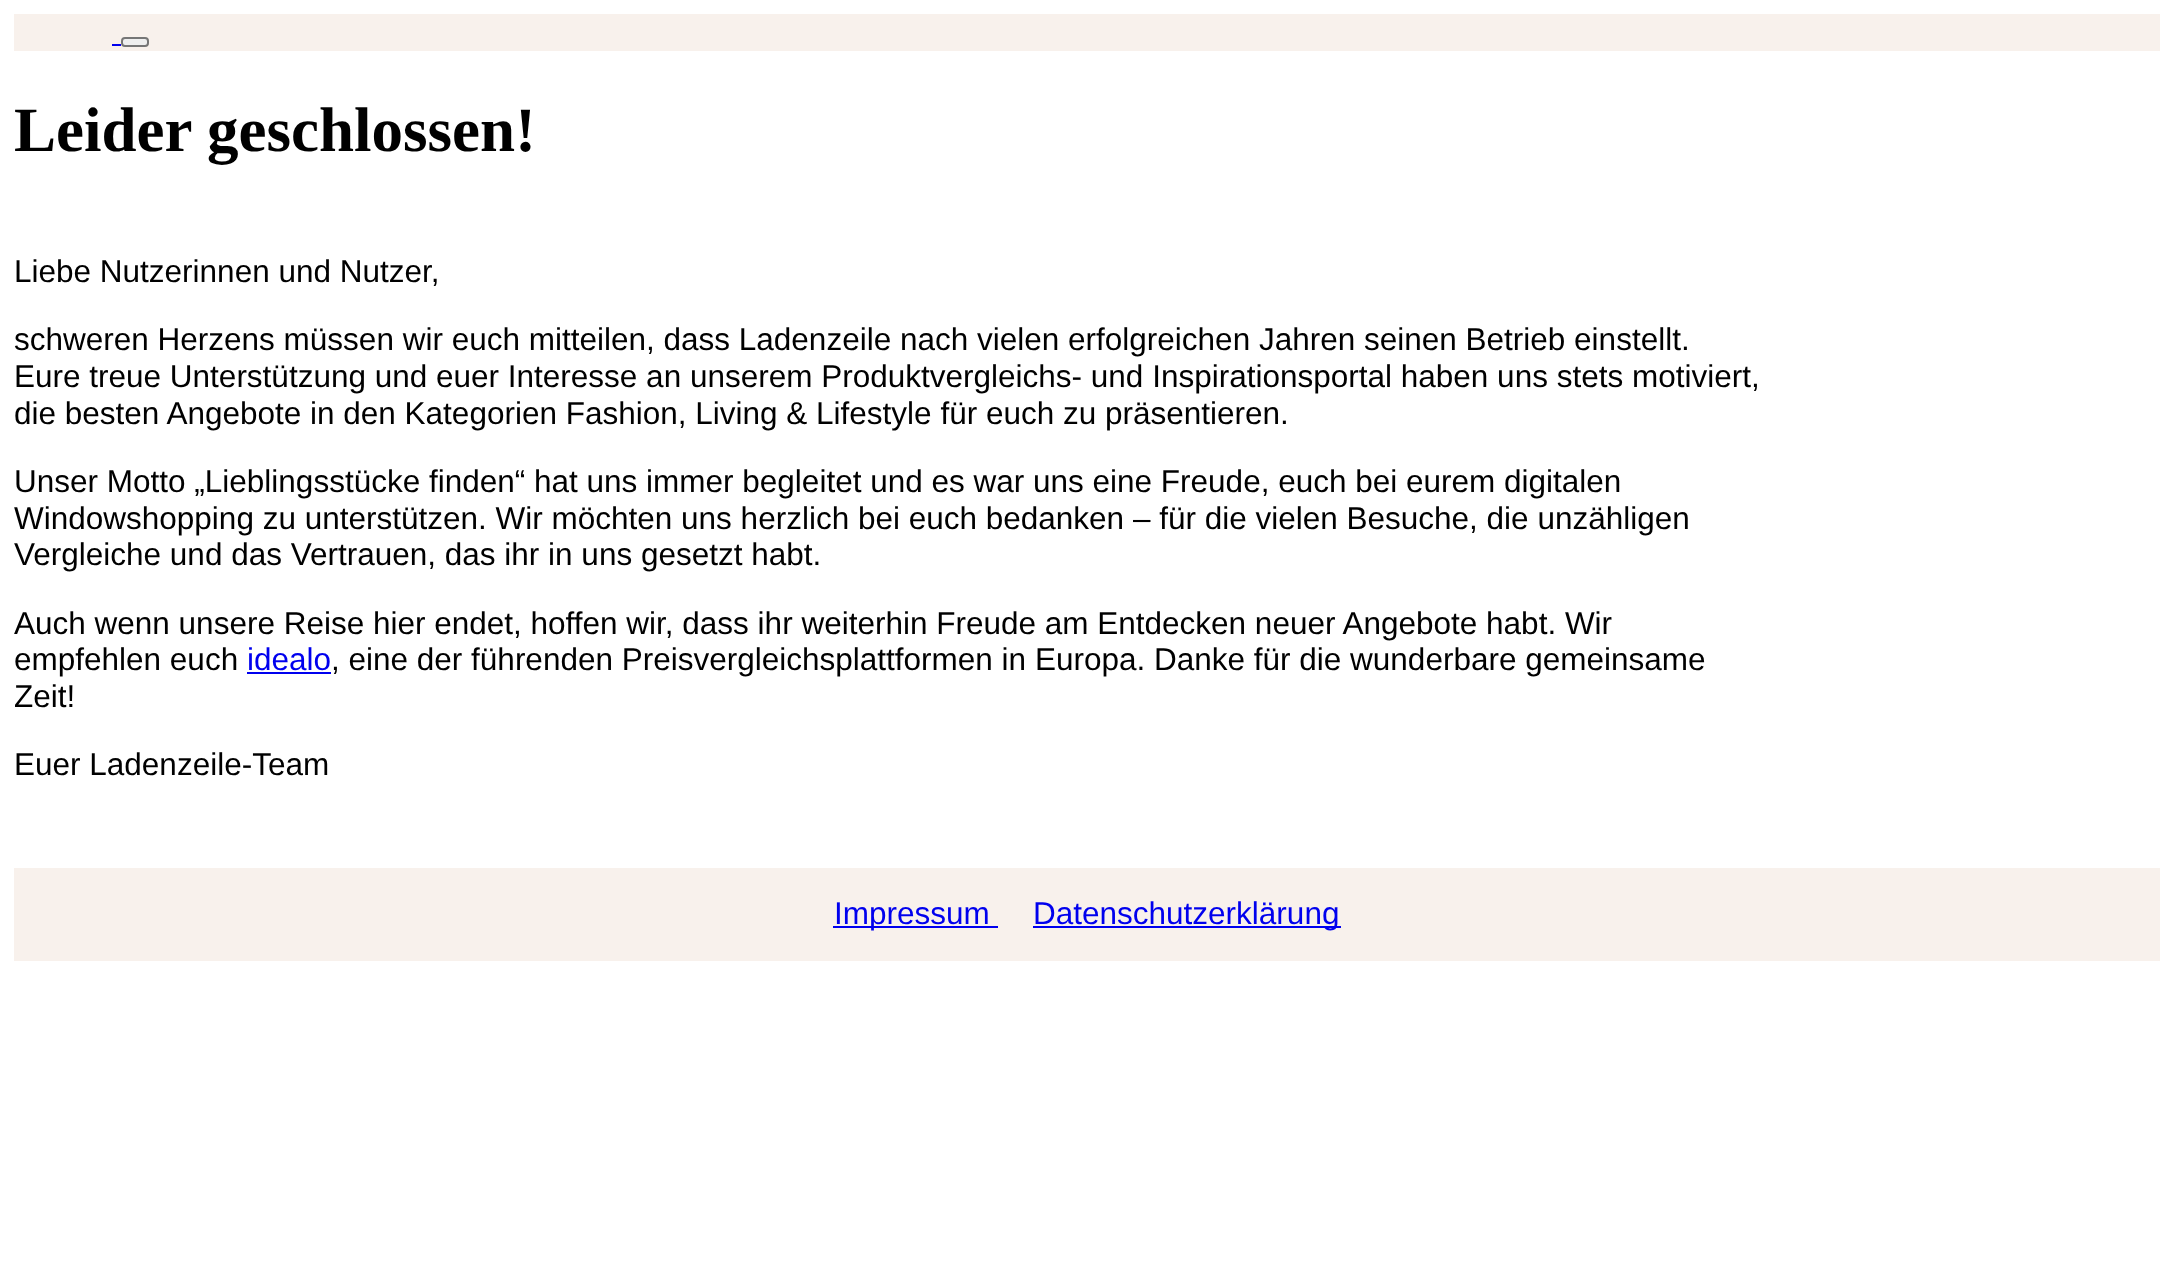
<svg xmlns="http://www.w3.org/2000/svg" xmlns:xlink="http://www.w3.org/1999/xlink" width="2172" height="1287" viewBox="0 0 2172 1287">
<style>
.cls-1{font:bold 63px Liberation Serif;fill:#000000}
.cls-2{font:31.5px Liberation Sans;fill:#000000}
.cls-3{font:31.5px Liberation Sans;fill:#0000ee}
</style>
<rect width="100%" height="100%" fill="#ffffff"/>
<rect fill="#f8f1ec" x="14" y="14" width="2146" height="37"/>
<rect fill="#0000ee" x="112" y="44" width="9" height="2"/>
<rect fill="#efefef" stroke="#767676" stroke-width="2" x="122" y="38" width="26" height="8" rx="3"/>
<rect fill="#0000ee" x="247" y="672" width="84" height="2"/>
<rect fill="#f8f1ec" x="14" y="868" width="2146" height="93"/>
<rect fill="#0000ee" x="833" y="926" width="165" height="2"/>
<rect fill="#0000ee" x="1033" y="926" width="308" height="2"/>
<text class="cls-1" x="14" y="151">Leider geschlossen!</text>
<text class="cls-2" x="14" y="282">Liebe Nutzerinnen und Nutzer,</text>
<text class="cls-2"><tspan x="14" y="350">schweren Herzens müssen wir euch mitteilen, dass Ladenzeile nach vielen erfolgreichen Jahren seinen Betrieb einstellt.</tspan><tspan x="14" y="387">Eure treue Unterstützung und euer Interesse an unserem Produktvergleichs- und Inspirationsportal haben uns stets motiviert,</tspan><tspan x="14" y="424">die besten Angebote in den Kategorien Fashion, Living &amp; Lifestyle für euch zu präsentieren.</tspan></text>
<text class="cls-2"><tspan x="14" y="492">Unser Motto „Lieblingsstücke finden“ hat uns immer begleitet und es war uns eine Freude, euch bei eurem digitalen</tspan><tspan x="14" y="529">Windowshopping zu unterstützen. Wir möchten uns herzlich bei euch bedanken – für die vielen Besuche, die unzähligen</tspan><tspan x="14" y="565">Vergleiche und das Vertrauen, das ihr in uns gesetzt habt.</tspan></text>
<text class="cls-2"><tspan x="14" y="634">Auch wenn unsere Reise hier endet, hoffen wir, dass ihr weiterhin Freude am Entdecken neuer Angebote habt. Wir</tspan><tspan x="14" y="670">empfehlen euch</tspan></text>
<text class="cls-3" x="247" y="670">idealo</text>
<text class="cls-2" x="331" y="670">, eine der führenden Preisvergleichsplattformen in Europa. Danke für die wunderbare gemeinsame</text>
<text class="cls-2" x="14" y="707">Zeit!</text>
<text class="cls-2" x="14" y="775">Euer Ladenzeile-Team</text>
<text class="cls-3" x="834" y="924">Impressum</text>
<text class="cls-3" x="1033" y="924">Datenschutzerklärung</text>
</svg>
